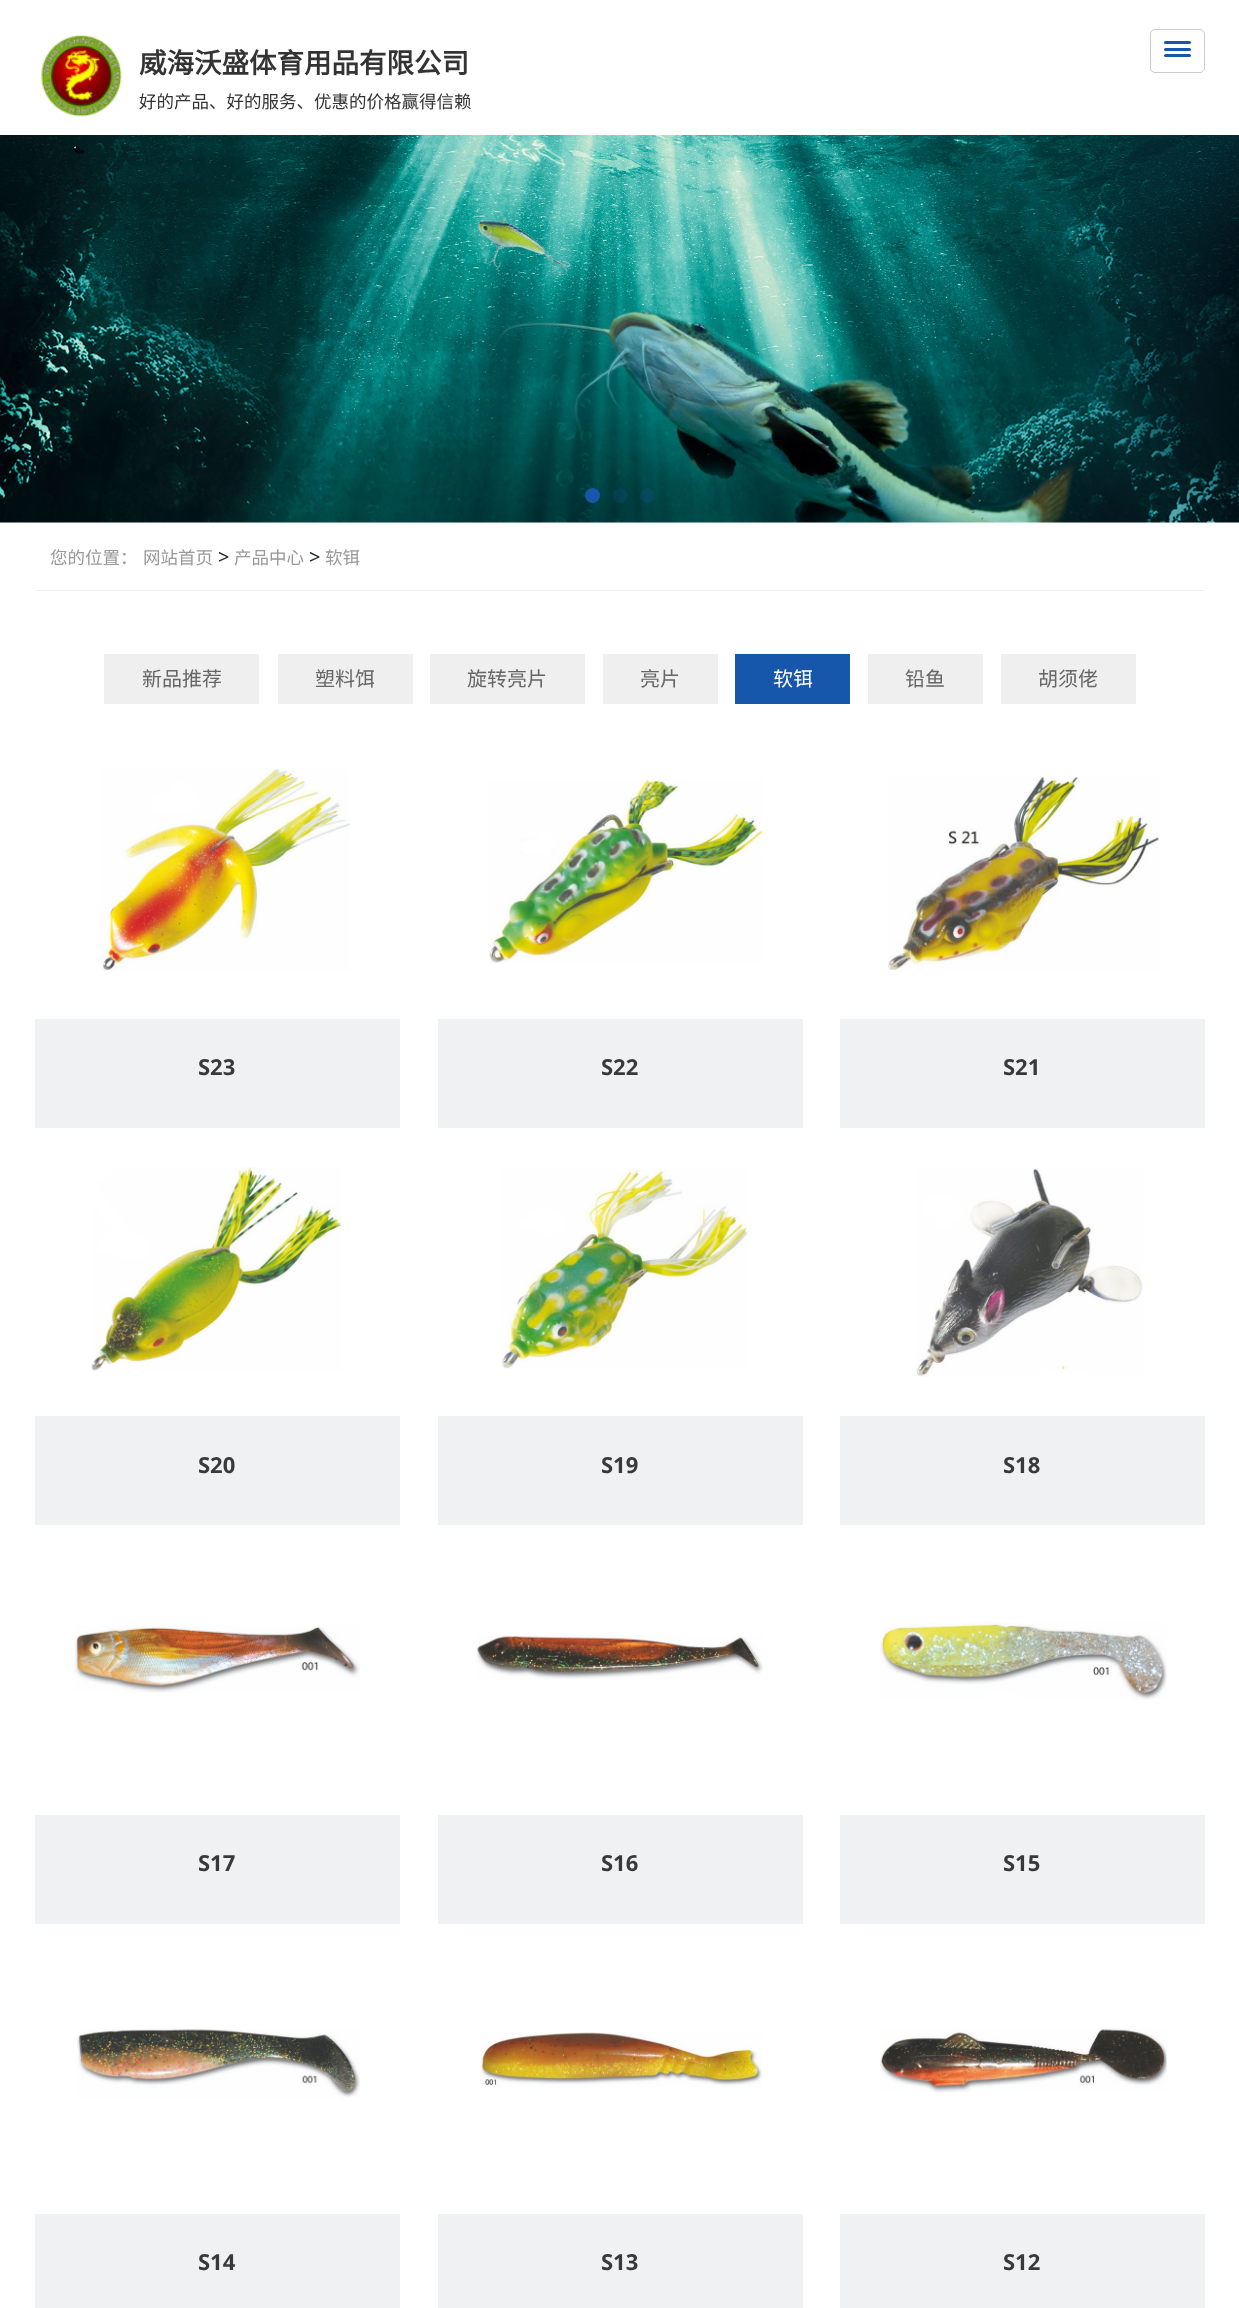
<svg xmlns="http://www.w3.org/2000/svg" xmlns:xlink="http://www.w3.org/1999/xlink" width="1239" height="2308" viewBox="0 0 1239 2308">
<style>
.cls-1{font:bold 27.5px Noto Sans CJK SC;fill:#333333}
.cls-2{font:17.5px Noto Sans CJK SC;fill:#333333}
.cls-3{font:17.5px Noto Sans CJK SC;fill:#999999}
.cls-4{font:20px Noto Sans;fill:#212529}
.cls-5{font:20px Noto Sans CJK SC;fill:#666666}
.cls-6{font:20px Noto Sans CJK SC;fill:#ffffff}
.cls-7{font:bold 22px Noto Sans;fill:#393939}
</style>
<rect width="100%" height="100%" fill="#ffffff"/>
<image xlink:href="image0.png" x="41" y="35" width="81" height="82"/>
<rect fill="none" stroke="#cccccc" x="1150.5" y="29.5" width="54" height="43" rx="4.5"/>
<rect fill="#1757ab" x="1164" y="41" width="27" height="3" rx="1.5"/>
<rect fill="#1757ab" x="1164" y="48" width="27" height="3" rx="1.5"/>
<rect fill="#1757ab" x="1164" y="54" width="27" height="3" rx="1.5"/>
<image xlink:href="image1.png" x="0" y="135" width="1239" height="388"/>
<circle fill="#1757ab" cx="592.5" cy="495.5" r="7.5"/>
<circle fill="#1757ab" fill-opacity="0.2" cx="620.5" cy="495.5" r="7.5"/>
<circle fill="#1757ab" fill-opacity="0.2" cx="647.5" cy="495.5" r="7.5"/>
<rect fill="#efefef" x="35" y="590" width="1170" height="1"/>
<rect fill="#efefef" x="104" y="654" width="155" height="50"/>
<rect fill="#efefef" x="278" y="654" width="135" height="50"/>
<rect fill="#efefef" x="430" y="654" width="155" height="50"/>
<rect fill="#efefef" x="603" y="654" width="115" height="50"/>
<rect fill="#1757ab" x="735" y="654" width="115" height="50"/>
<rect fill="#efefef" x="868" y="654" width="115" height="50"/>
<rect fill="#efefef" x="1001" y="654" width="135" height="50"/>
<image xlink:href="image2.png" x="101" y="769" width="249" height="202"/>
<rect fill="#f0f1f2" x="35" y="1019" width="365" height="109"/>
<image xlink:href="image3.png" x="489" y="779" width="275" height="185"/>
<rect fill="#f0f1f2" x="438" y="1019" width="365" height="109"/>
<image xlink:href="image4.png" x="887" y="776" width="273" height="194"/>
<rect fill="#f0f1f2" x="840" y="1019" width="365" height="109"/>
<image xlink:href="image5.png" x="91" y="1167" width="251" height="205"/>
<rect fill="#f0f1f2" x="35" y="1416" width="365" height="109"/>
<image xlink:href="image6.png" x="501" y="1169" width="247" height="200"/>
<rect fill="#f0f1f2" x="438" y="1416" width="365" height="109"/>
<image xlink:href="image7.png" x="916" y="1168" width="227" height="209"/>
<rect fill="#f0f1f2" x="840" y="1416" width="365" height="109"/>
<image xlink:href="image8.png" x="74" y="1625" width="286" height="68"/>
<rect fill="#f0f1f2" x="35" y="1815" width="365" height="109"/>
<image xlink:href="image9.png" x="476" y="1635" width="287" height="44"/>
<rect fill="#f0f1f2" x="438" y="1815" width="365" height="109"/>
<image xlink:href="image10.png" x="880" y="1622" width="287" height="78"/>
<rect fill="#f0f1f2" x="840" y="1815" width="365" height="109"/>
<image xlink:href="image11.png" x="77" y="2029" width="283" height="69"/>
<rect fill="#f0f1f2" x="35" y="2214" width="365" height="94"/>
<image xlink:href="image12.png" x="480" y="2032" width="282" height="55"/>
<rect fill="#f0f1f2" x="438" y="2214" width="365" height="94"/>
<image xlink:href="image13.png" x="880" y="2028" width="287" height="65"/>
<rect fill="#f0f1f2" x="840" y="2214" width="365" height="94"/>
<text class="cls-1" x="139" y="73">威海沃盛体育用品有限公司</text>
<text class="cls-2" x="139" y="108">好的产品、好的服务、优惠的价格赢得信赖</text>
<text class="cls-3" x="50" y="564">您的位置：</text>
<text class="cls-3" x="143" y="564">网站首页</text>
<text class="cls-4" x="218" y="564">&gt;</text>
<text class="cls-3" x="234" y="564">产品中心</text>
<text class="cls-4" x="309" y="564">&gt;</text>
<text class="cls-3" x="325" y="564">软铒</text>
<text class="cls-5" x="142" y="686">新品推荐</text>
<text class="cls-5" x="315" y="686">塑料饵</text>
<text class="cls-5" x="467" y="686">旋转亮片</text>
<text class="cls-5" x="640" y="686">亮片</text>
<text class="cls-6" x="773" y="686">软铒</text>
<text class="cls-5" x="905" y="686">铅鱼</text>
<text class="cls-5" x="1038" y="686">胡须佬</text>
<text class="cls-7" x="198" y="1075">S23</text>
<text class="cls-7" x="601" y="1075">S22</text>
<text class="cls-7" x="1003" y="1075">S21</text>
<text class="cls-7" x="198" y="1473">S20</text>
<text class="cls-7" x="601" y="1473">S19</text>
<text class="cls-7" x="1003" y="1473">S18</text>
<text class="cls-7" x="198" y="1871">S17</text>
<text class="cls-7" x="601" y="1871">S16</text>
<text class="cls-7" x="1003" y="1871">S15</text>
<text class="cls-7" x="198" y="2270">S14</text>
<text class="cls-7" x="601" y="2270">S13</text>
<text class="cls-7" x="1003" y="2270">S12</text>
</svg>
